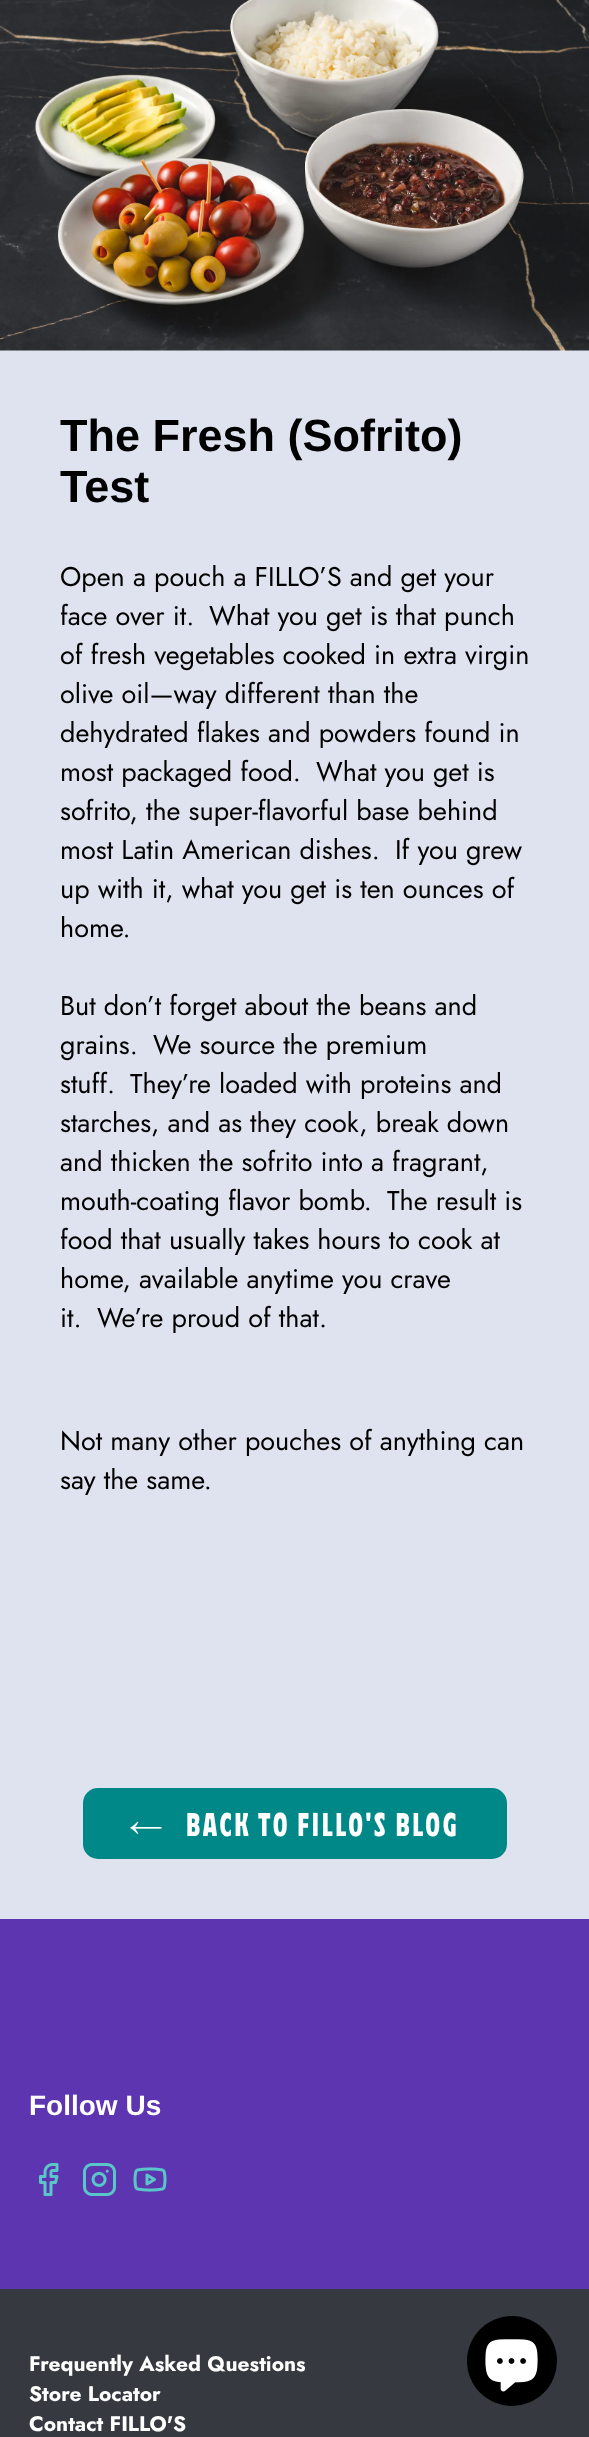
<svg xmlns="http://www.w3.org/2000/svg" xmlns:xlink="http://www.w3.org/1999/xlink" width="589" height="2437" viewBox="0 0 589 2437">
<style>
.cls-1{font:bold 45px Liberation Sans;fill:#000000}
.cls-2{font:27px Jost;fill:#000000}
.cls-3{font:800 33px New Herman;letter-spacing:2.6px;fill:#ffffff}
.cls-4{font:bold 28px Liberation Sans;fill:#ffffff}
.cls-5{font:bold 21px Jost;fill:#ffffff}
</style>
<rect width="100%" height="100%" fill="#dfe3ef"/>
<image xlink:href="image0.png" x="0" y="0" width="589" height="351"/>
<rect fill="#008888" x="83" y="1788" width="424" height="71" rx="15"/>
<image xlink:href="image1.png" x="130" y="1821" width="32" height="13"/>
<rect fill="#5d35b1" x="0" y="1919" width="589" height="370"/>
<image xlink:href="image2.png" x="39" y="2163" width="20" height="33"/>
<image xlink:href="image3.png" x="83" y="2163" width="33" height="33"/>
<image xlink:href="image4.png" x="133" y="2167" width="34" height="25"/>
<rect fill="#363940" x="0" y="2289" width="589" height="148"/>
<circle fill="#000000" cx="512" cy="2361" r="45"/>
<image xlink:href="image5.png" x="485" y="2339" width="53" height="53"/>
<text class="cls-1"><tspan x="60" y="451">The Fresh (Sofrito)</tspan><tspan x="60" y="502">Test</tspan></text>
<text class="cls-2"><tspan x="60" y="586">Open a pouch a FILLO’S and get your</tspan><tspan x="60" y="625">face over it.</tspan></text>
<text class="cls-2" x="209" y="625">What you get is that punch</text>
<text class="cls-2"><tspan x="60" y="664">of fresh vegetables cooked in extra virgin</tspan><tspan x="60" y="703">olive oil—way different than the</tspan><tspan x="60" y="742">dehydrated flakes and powders found in</tspan><tspan x="60" y="781">most packaged food.</tspan></text>
<text class="cls-2" x="316" y="781">What you get is</text>
<text class="cls-2"><tspan x="60" y="820">sofrito, the super-flavorful base behind</tspan><tspan x="60" y="859">most Latin American dishes.</tspan></text>
<text class="cls-2" x="395" y="859">If you grew</text>
<text class="cls-2"><tspan x="60" y="898">up with it, what you get is ten ounces of</tspan><tspan x="60" y="937">home.</tspan></text>
<text class="cls-2"><tspan x="60" y="1015">But don’t forget about the beans and</tspan><tspan x="60" y="1054">grains.</tspan></text>
<text class="cls-2" x="153" y="1054">We source the premium</text>
<text class="cls-2" x="60" y="1093">stuff.</text>
<text class="cls-2" x="130" y="1093">They’re loaded with proteins and</text>
<text class="cls-2"><tspan x="60" y="1132">starches, and as they cook, break down</tspan><tspan x="60" y="1171">and thicken the sofrito into a fragrant,</tspan><tspan x="60" y="1210">mouth-coating flavor bomb.</tspan></text>
<text class="cls-2" x="387" y="1210">The result is</text>
<text class="cls-2"><tspan x="60" y="1249">food that usually takes hours to cook at</tspan><tspan x="60" y="1288">home, available anytime you crave</tspan><tspan x="60" y="1327">it.</tspan></text>
<text class="cls-2" x="97" y="1327">We’re proud of that.</text>
<text class="cls-2"><tspan x="60" y="1450">Not many other pouches of anything can</tspan><tspan x="60" y="1489">say the same.</tspan></text>
<text class="cls-3" x="186" y="1836">BACK TO FILLO'S BLOG</text>
<text class="cls-4" x="29" y="2115">Follow Us</text>
<text class="cls-5"><tspan x="29" y="2371">Frequently Asked Questions</tspan><tspan x="29" y="2401">Store Locator</tspan><tspan x="29" y="2431">Contact FILLO'S</tspan></text>
</svg>
